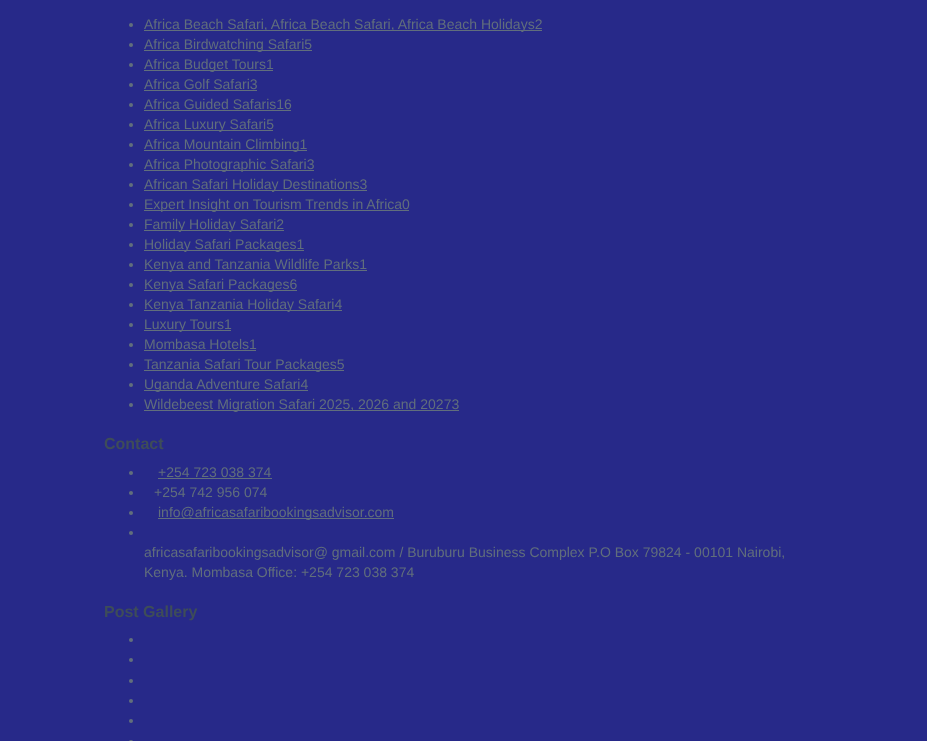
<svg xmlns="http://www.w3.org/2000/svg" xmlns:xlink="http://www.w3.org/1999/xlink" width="927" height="741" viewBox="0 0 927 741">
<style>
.cls-1{font:14px Liberation Sans;fill:#616e7c}
.cls-2{font:bold 16px Liberation Sans;fill:#3e4c59}
</style>
<rect width="100%" height="100%" fill="#272989"/>
<circle fill="#616e7c" cx="131" cy="25" r="2"/>
<rect fill="#616e7c" x="144" y="30" width="398" height="1"/>
<circle fill="#616e7c" cx="131" cy="45" r="2"/>
<rect fill="#616e7c" x="144" y="50" width="168" height="1"/>
<circle fill="#616e7c" cx="131" cy="65" r="2"/>
<rect fill="#616e7c" x="144" y="70" width="129" height="1"/>
<circle fill="#616e7c" cx="131" cy="85" r="2"/>
<rect fill="#616e7c" x="144" y="90" width="113" height="1"/>
<circle fill="#616e7c" cx="131" cy="105" r="2"/>
<rect fill="#616e7c" x="144" y="110" width="147" height="1"/>
<circle fill="#616e7c" cx="131" cy="125" r="2"/>
<rect fill="#616e7c" x="144" y="130" width="129" height="1"/>
<circle fill="#616e7c" cx="131" cy="145" r="2"/>
<rect fill="#616e7c" x="144" y="150" width="163" height="1"/>
<circle fill="#616e7c" cx="131" cy="165" r="2"/>
<rect fill="#616e7c" x="144" y="170" width="170" height="1"/>
<circle fill="#616e7c" cx="131" cy="185" r="2"/>
<rect fill="#616e7c" x="144" y="190" width="223" height="1"/>
<circle fill="#616e7c" cx="131" cy="205" r="2"/>
<rect fill="#616e7c" x="144" y="210" width="265" height="1"/>
<circle fill="#616e7c" cx="131" cy="225" r="2"/>
<rect fill="#616e7c" x="144" y="230" width="140" height="1"/>
<circle fill="#616e7c" cx="131" cy="245" r="2"/>
<rect fill="#616e7c" x="144" y="250" width="160" height="1"/>
<circle fill="#616e7c" cx="131" cy="265" r="2"/>
<rect fill="#616e7c" x="144" y="270" width="223" height="1"/>
<circle fill="#616e7c" cx="131" cy="285" r="2"/>
<rect fill="#616e7c" x="144" y="290" width="153" height="1"/>
<circle fill="#616e7c" cx="131" cy="305" r="2"/>
<rect fill="#616e7c" x="144" y="310" width="198" height="1"/>
<circle fill="#616e7c" cx="131" cy="325" r="2"/>
<rect fill="#616e7c" x="144" y="330" width="87" height="1"/>
<circle fill="#616e7c" cx="131" cy="345" r="2"/>
<rect fill="#616e7c" x="144" y="350" width="112" height="1"/>
<circle fill="#616e7c" cx="131" cy="365" r="2"/>
<rect fill="#616e7c" x="144" y="370" width="200" height="1"/>
<circle fill="#616e7c" cx="131" cy="385" r="2"/>
<rect fill="#616e7c" x="144" y="390" width="164" height="1"/>
<circle fill="#616e7c" cx="131" cy="405" r="2"/>
<rect fill="#616e7c" x="144" y="410" width="315" height="1"/>
<circle fill="#616e7c" cx="131" cy="473" r="2"/>
<rect fill="#616e7c" x="158" y="478" width="114" height="1"/>
<circle fill="#616e7c" cx="131" cy="493" r="2"/>
<circle fill="#616e7c" cx="131" cy="513" r="2"/>
<rect fill="#616e7c" x="158" y="518" width="236" height="1"/>
<circle fill="#616e7c" cx="131" cy="533" r="2"/>
<circle fill="#616e7c" cx="131" cy="640" r="2"/>
<circle fill="#616e7c" cx="131" cy="660" r="2"/>
<circle fill="#616e7c" cx="131" cy="681" r="2"/>
<circle fill="#616e7c" cx="131" cy="701" r="2"/>
<circle fill="#616e7c" cx="131" cy="721" r="2"/>
<rect fill="#616e7c" x="129" y="740" width="4" height="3" rx="2"/>
<text class="cls-1"><tspan x="144" y="29">Africa Beach Safari, Africa Beach Safari, Africa Beach Holidays2</tspan><tspan x="144" y="49">Africa Birdwatching Safari5</tspan><tspan x="144" y="69">Africa Budget Tours1</tspan><tspan x="144" y="89">Africa Golf Safari3</tspan><tspan x="144" y="109">Africa Guided Safaris16</tspan><tspan x="144" y="129">Africa Luxury Safari5</tspan><tspan x="144" y="149">Africa Mountain Climbing1</tspan><tspan x="144" y="169">Africa Photographic Safari3</tspan><tspan x="144" y="189">African Safari Holiday Destinations3</tspan><tspan x="144" y="209">Expert Insight on Tourism Trends in Africa0</tspan><tspan x="144" y="229">Family Holiday Safari2</tspan><tspan x="144" y="249">Holiday Safari Packages1</tspan><tspan x="144" y="269">Kenya and Tanzania Wildlife Parks1</tspan><tspan x="144" y="289">Kenya Safari Packages6</tspan><tspan x="144" y="309">Kenya Tanzania Holiday Safari4</tspan><tspan x="144" y="329">Luxury Tours1</tspan><tspan x="144" y="349">Mombasa Hotels1</tspan><tspan x="144" y="369">Tanzania Safari Tour Packages5</tspan><tspan x="144" y="389">Uganda Adventure Safari4</tspan><tspan x="144" y="409">Wildebeest Migration Safari 2025, 2026 and 20273</tspan></text>
<text class="cls-2" x="104" y="449">Contact</text>
<text class="cls-1" x="158" y="477">+254 723 038 374</text>
<text class="cls-1" x="154" y="497">+254 742 956 074</text>
<text class="cls-1" x="158" y="517">info@africasafaribookingsadvisor.com</text>
<text class="cls-1"><tspan x="144" y="557">africasafaribookingsadvisor@ gmail.com / Buruburu Business Complex P.O Box 79824 - 00101 Nairobi,</tspan><tspan x="144" y="577">Kenya. Mombasa Office: +254 723 038 374</tspan></text>
<text class="cls-2" x="104" y="617">Post Gallery</text>
</svg>
